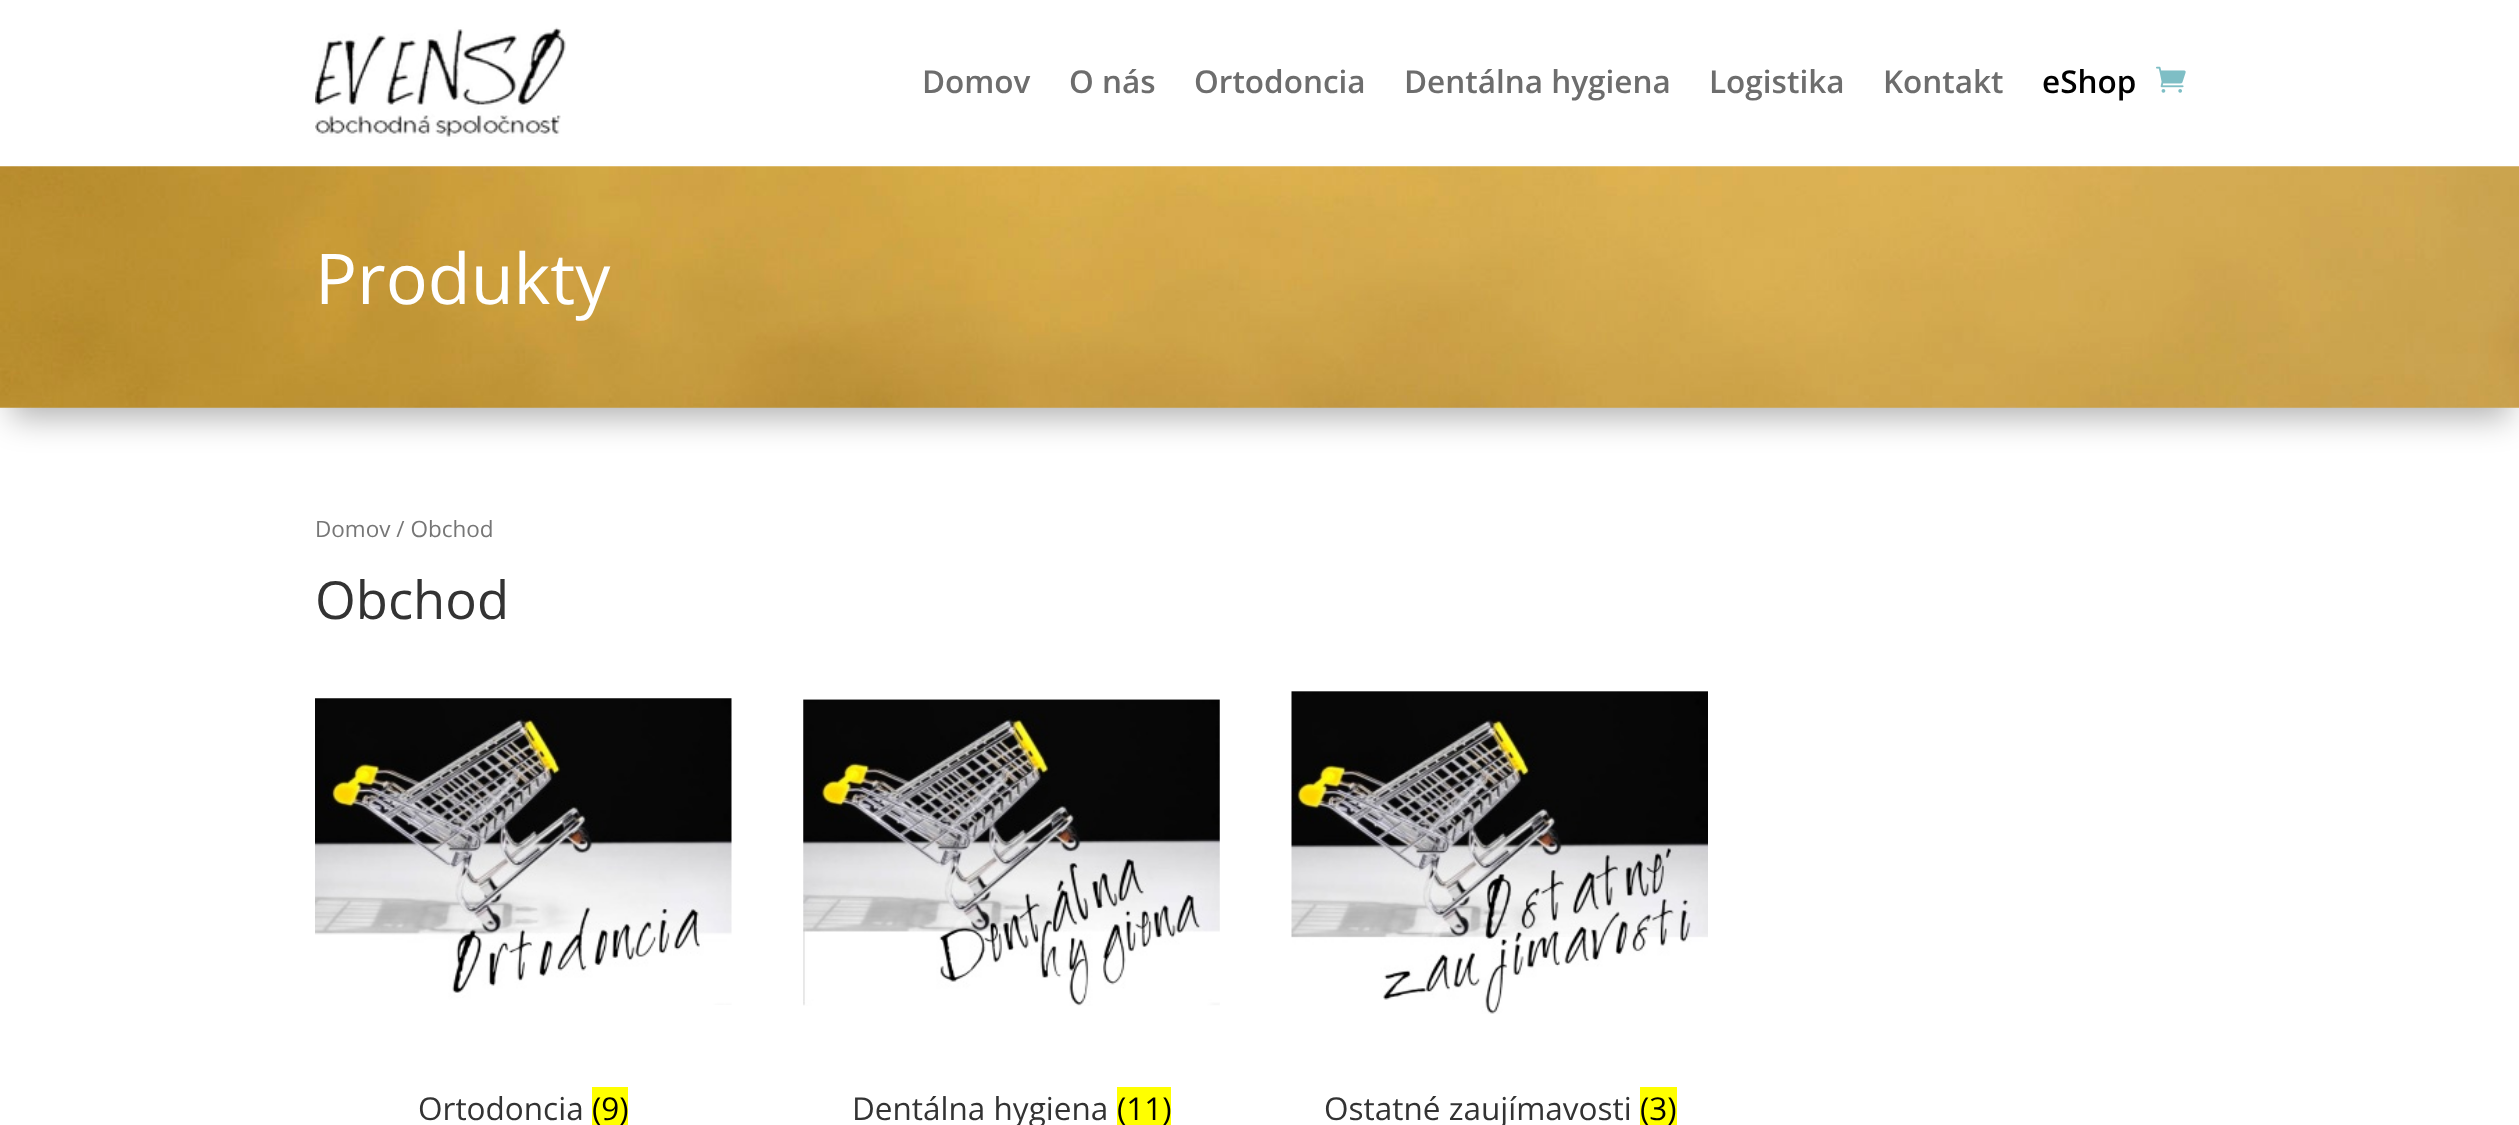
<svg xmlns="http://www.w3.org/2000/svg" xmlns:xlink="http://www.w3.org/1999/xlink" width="2519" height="1125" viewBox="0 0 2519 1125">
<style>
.cls-1{font:600 31.5px Open Sans;fill:#6d6d6d}
.cls-2{font:600 31.5px Open Sans;fill:#000000}
.cls-3{font:70px Open Sans;fill:#ffffff}
.cls-4{font:22.5px Open Sans;fill:#767676}
.cls-5{font:52.5px Open Sans;fill:#333333}
.cls-6{font:31.5px Open Sans;fill:#333333}
.cls-7{font:31.5px Open Sans;fill:#000000}
</style>
<rect width="100%" height="100%" fill="#ffffff"/>
<image xlink:href="image0.png" x="315" y="27" width="251" height="110"/>
<image xlink:href="image1.png" x="2156" y="66" width="30" height="27"/>
<rect fill="#000000" fill-opacity="0.3" filter="blur(16px)" x="11" y="198" width="2499" height="220"/>
<image xlink:href="image2.png" x="0" y="166" width="2519" height="242"/>
<image xlink:href="image3.png" x="315" y="698" width="417" height="307"/>
<rect fill="#ffff00" x="592" y="1087" width="36" height="38"/>
<image xlink:href="image4.png" x="803" y="699" width="417" height="307"/>
<rect fill="#ffff00" x="1117" y="1087" width="54" height="38"/>
<image xlink:href="image5.png" x="1291" y="691" width="417" height="323"/>
<rect fill="#ffff00" x="1640" y="1087" width="37" height="38"/>
<text class="cls-1" x="922" y="93">Domov</text>
<text class="cls-1" x="1069" y="93">O nás</text>
<text class="cls-1" x="1194" y="93">Ortodoncia</text>
<text class="cls-1" x="1404" y="93">Dentálna hygiena</text>
<text class="cls-1" x="1709" y="93">Logistika</text>
<text class="cls-1" x="1883" y="93">Kontakt</text>
<text class="cls-2" x="2042" y="93">eShop</text>
<text class="cls-3" x="315" y="304">Produkty</text>
<text class="cls-4" x="315" y="537">Domov / Obchod</text>
<text class="cls-5" x="315" y="619">Obchod</text>
<text class="cls-6" x="418" y="1120">Ortodoncia</text>
<text class="cls-7" x="592" y="1120">(9)</text>
<text class="cls-6" x="852" y="1120">Dentálna hygiena</text>
<text class="cls-7" x="1117" y="1120">(11)</text>
<text class="cls-6" x="1324" y="1120">Ostatné zaujímavosti</text>
<text class="cls-7" x="1640" y="1120">(3)</text>
</svg>
